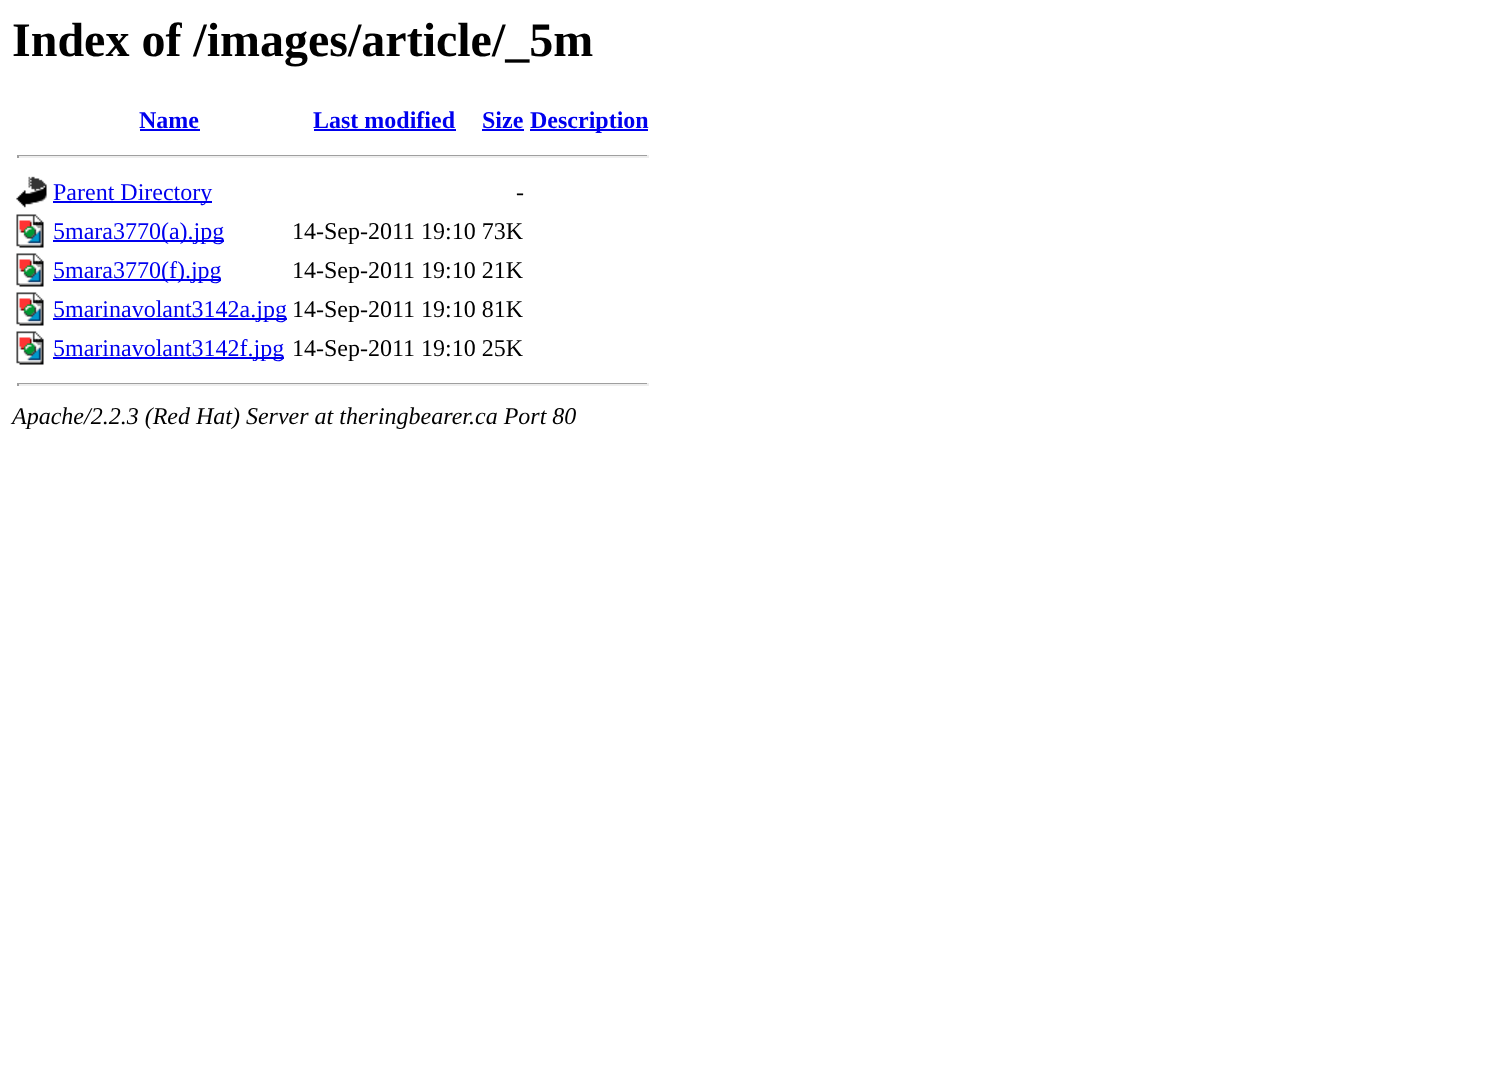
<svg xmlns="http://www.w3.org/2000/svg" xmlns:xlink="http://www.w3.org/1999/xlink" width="1491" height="1091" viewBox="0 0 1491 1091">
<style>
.cls-1{font:bold 48px Liberation Serif;fill:#000000}
.cls-2{font:bold 24px Liberation Serif;fill:#0000ee}
.cls-3{font:24px Liberation Serif;fill:#0000ee}
.cls-4{font:24px Liberation Serif;fill:#000000}
.cls-5{font:italic 24px Liberation Serif;fill:#000000}
</style>
<rect width="100%" height="100%" fill="#ffffff"/>
<rect fill="#0000ee" x="140" y="129" width="60" height="2"/>
<rect fill="#0000ee" x="314" y="129" width="142" height="2"/>
<rect fill="#0000ee" x="482" y="129" width="42" height="2"/>
<rect fill="#0000ee" x="530" y="129" width="118" height="2"/>
<rect fill="#9f9f9f" x="17" y="155" width="631" height="1"/>
<rect fill="#eeeeee" x="647" y="155" width="2" height="3"/>
<rect fill="#eeeeee" x="17" y="156" width="631" height="2"/>
<rect fill="#9f9f9f" x="17" y="155" width="2" height="3"/>
<image xlink:href="image0.png" x="16" y="176" width="31" height="32"/>
<rect fill="#0000ee" x="53" y="201" width="159" height="2"/>
<image xlink:href="image1.png" x="16" y="214" width="28" height="34"/>
<rect fill="#0000ee" x="53" y="240" width="171" height="2"/>
<image xlink:href="image1.png" x="16" y="253" width="28" height="34"/>
<rect fill="#0000ee" x="53" y="279" width="168" height="2"/>
<image xlink:href="image1.png" x="16" y="292" width="28" height="34"/>
<rect fill="#0000ee" x="53" y="318" width="234" height="2"/>
<image xlink:href="image1.png" x="16" y="331" width="28" height="34"/>
<rect fill="#0000ee" x="53" y="357" width="231" height="2"/>
<rect fill="#9f9f9f" x="17" y="383" width="631" height="1"/>
<rect fill="#eeeeee" x="647" y="383" width="2" height="3"/>
<rect fill="#eeeeee" x="17" y="384" width="631" height="2"/>
<rect fill="#9f9f9f" x="17" y="383" width="2" height="3"/>
<text class="cls-1" x="12" y="56">Index of /images/article/_5m</text>
<text class="cls-2" x="139" y="128">Name</text>
<text class="cls-2" x="313" y="128">Last modified</text>
<text class="cls-2" x="482" y="128">Size</text>
<text class="cls-2" x="530" y="128">Description</text>
<text class="cls-3" x="53" y="200">Parent Directory</text>
<text class="cls-4" x="516" y="200">-</text>
<text class="cls-3" x="53" y="239">5mara3770(a).jpg</text>
<text class="cls-4" x="292" y="239">14-Sep-2011 19:10 73K</text>
<text class="cls-3" x="53" y="278">5mara3770(f).jpg</text>
<text class="cls-4" x="292" y="278">14-Sep-2011 19:10 21K</text>
<text class="cls-3" x="53" y="317">5marinavolant3142a.jpg</text>
<text class="cls-4" x="292" y="317">14-Sep-2011 19:10 81K</text>
<text class="cls-3" x="53" y="356">5marinavolant3142f.jpg</text>
<text class="cls-4" x="292" y="356">14-Sep-2011 19:10 25K</text>
<text class="cls-5" x="12" y="424">Apache/2.2.3 (Red Hat) Server at theringbearer.ca Port 80</text>
</svg>
